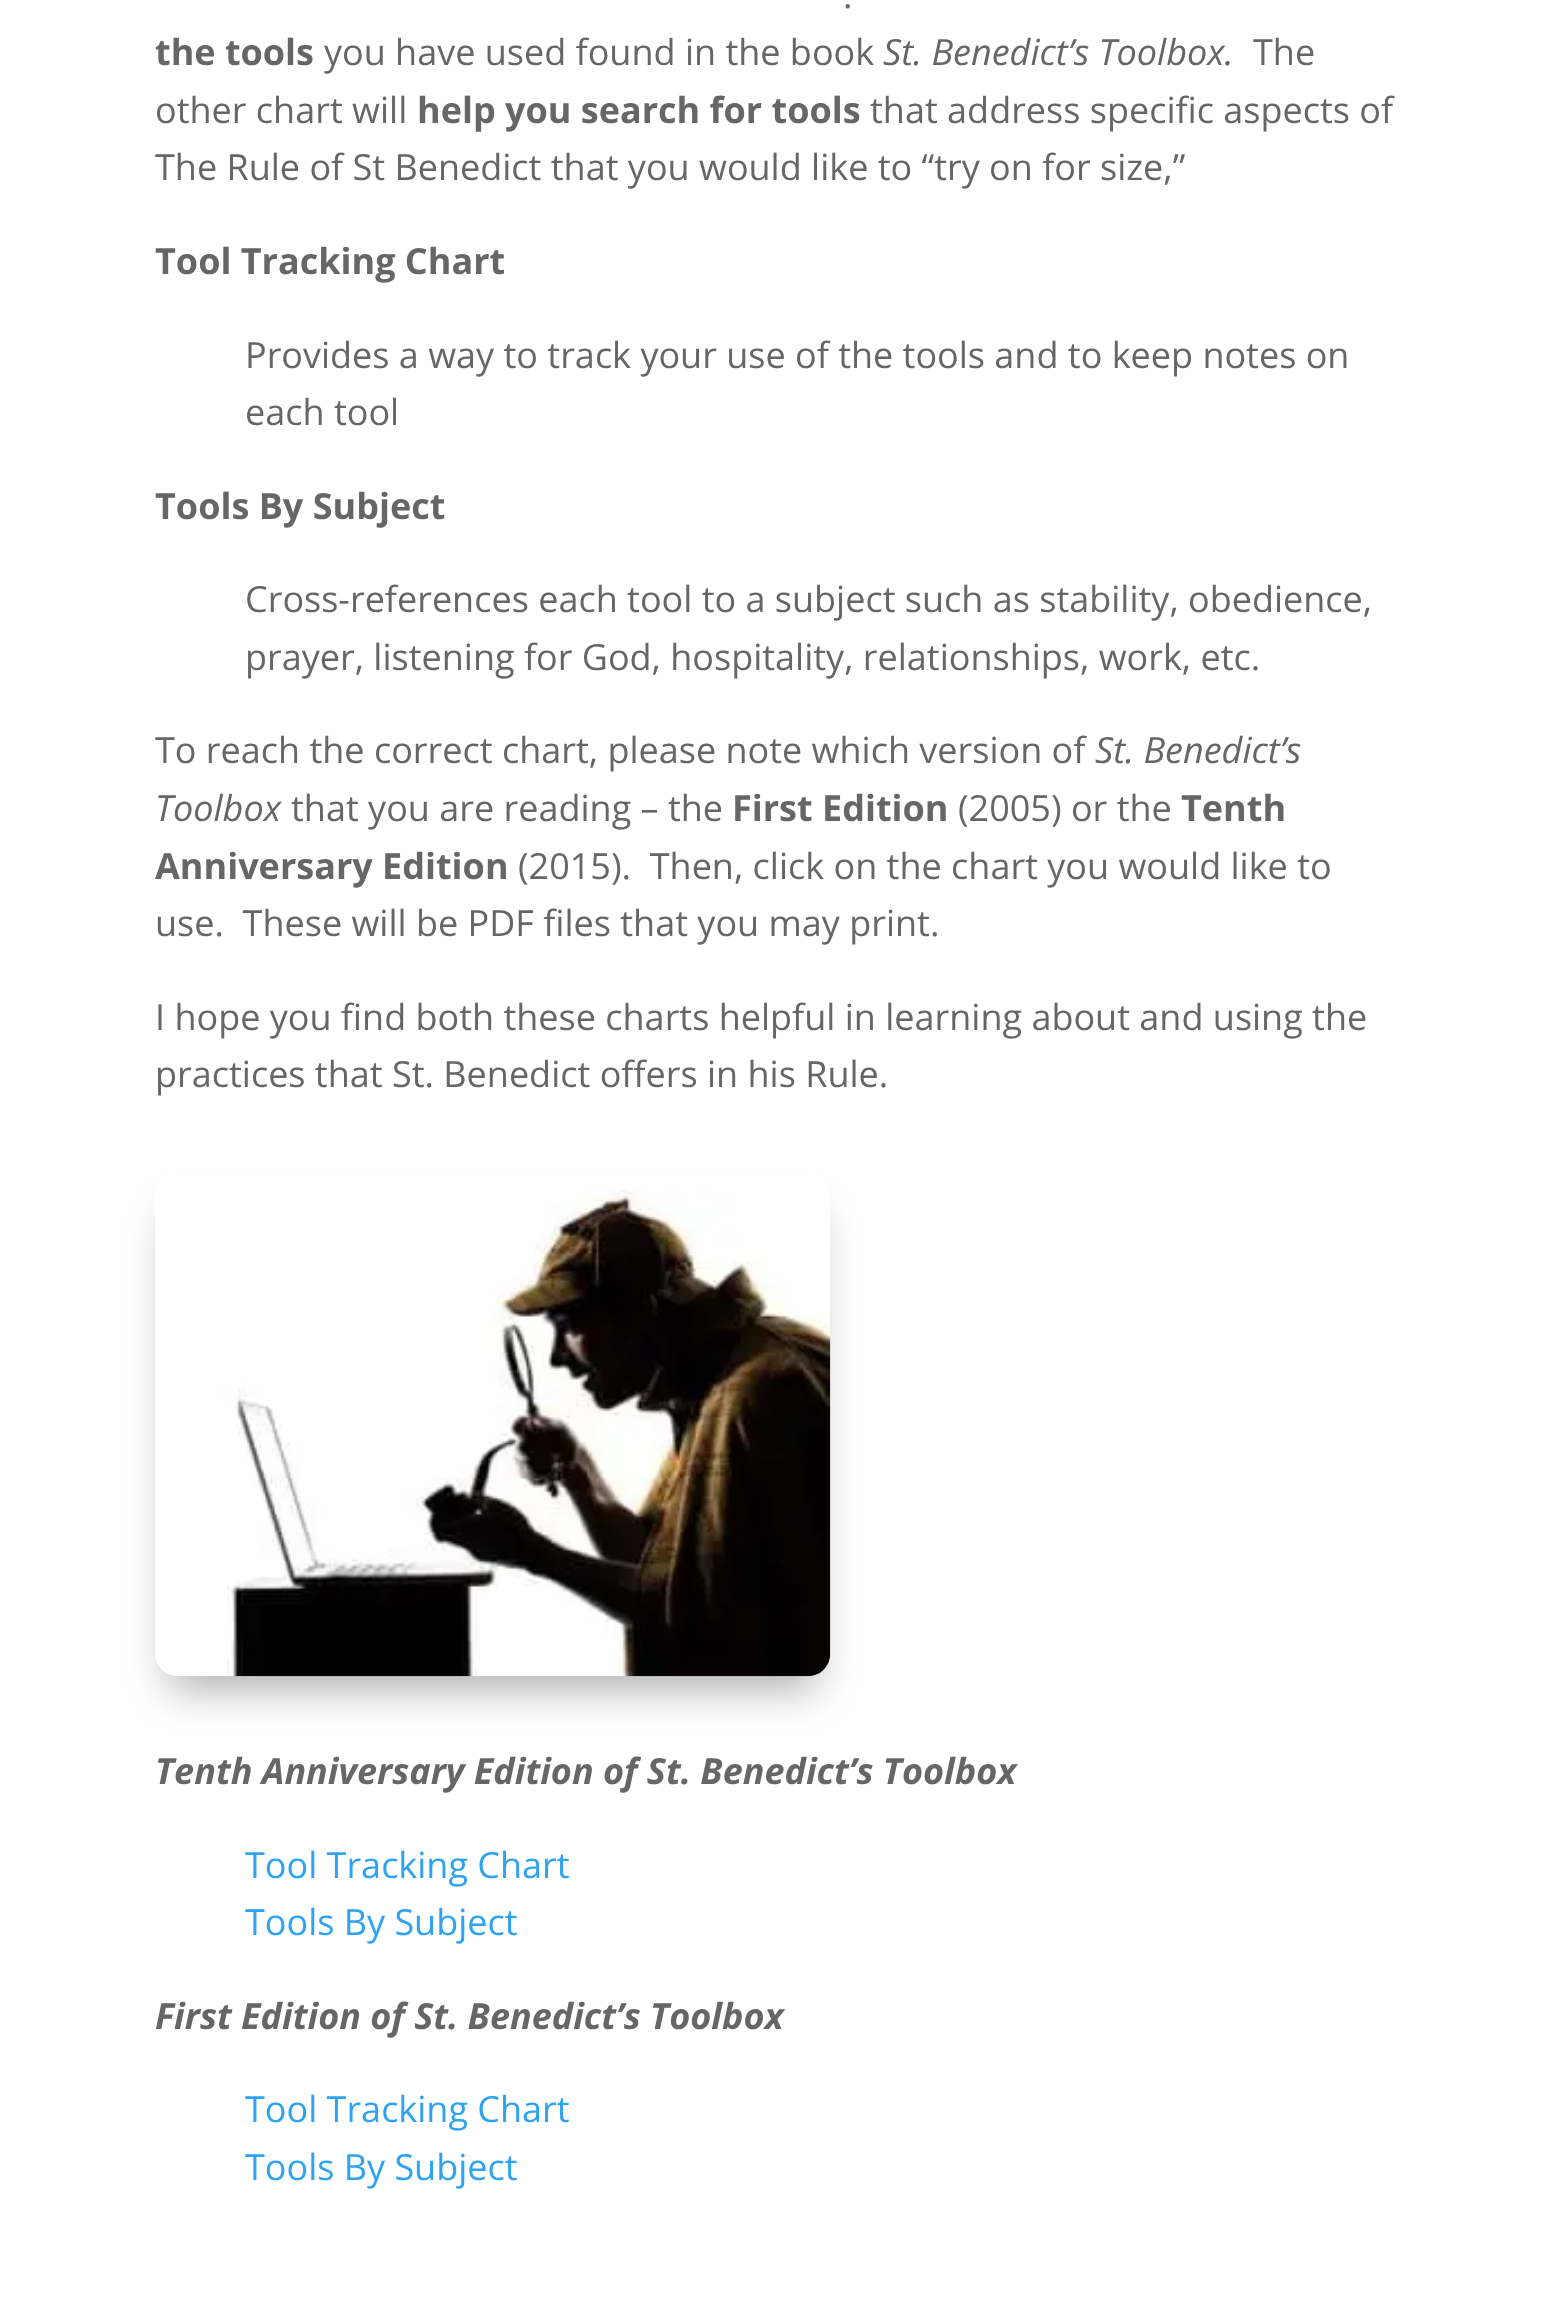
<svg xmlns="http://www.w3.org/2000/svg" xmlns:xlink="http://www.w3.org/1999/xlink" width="1554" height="2306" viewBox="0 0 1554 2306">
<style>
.cls-1{font:36px Open Sans;fill:#666666}
.cls-2{font:bold 36px Open Sans;fill:#666666}
.cls-3{font:italic 36px Open Sans;fill:#666666}
.cls-4{font:italic bold 36px Open Sans;fill:#666666}
.cls-5{font:36px Open Sans;fill:#2ea3f2}
</style>
<defs>
<clipPath id="clip1"><path d="M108 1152H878V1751H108ZM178 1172H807C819.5 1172 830 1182.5 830 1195V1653C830 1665.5 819.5 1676 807 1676H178C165.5 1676 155 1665.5 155 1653V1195C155 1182.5 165.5 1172 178 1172Z" clip-rule="evenodd"/></clipPath>
</defs>
<rect width="100%" height="100%" fill="#ffffff"/>
<g clip-path="url(#clip1)">
<rect fill="#000000" fill-opacity="0.3" filter="blur(20px)" x="169" y="1213" width="648" height="477" rx="9"/>
</g>
<image xlink:href="image0.png" x="161" y="1190" width="670" height="487"/>
<text class="cls-1" x="843" y="8">.</text>
<text class="cls-2" x="155" y="65">the tools</text>
<text class="cls-1" x="324" y="65">you have used found in the book</text>
<text class="cls-3" x="883" y="65">St. Benedict’s Toolbox.</text>
<text class="cls-1" x="1253" y="65">The</text>
<text class="cls-1" x="155" y="123">other chart will</text>
<text class="cls-2" x="417" y="123">help you search for tools</text>
<text class="cls-1" x="870" y="123">that address specific aspects of</text>
<text class="cls-1" x="155" y="180">The Rule of St Benedict that you would like to “try on for size,”</text>
<text class="cls-2" x="155" y="274">Tool Tracking Chart</text>
<text class="cls-1"><tspan x="245" y="368">Provides a way to track your use of the tools and to keep notes on</tspan><tspan x="245" y="425">each tool</tspan></text>
<text class="cls-2" x="155" y="519">Tools By Subject</text>
<text class="cls-1"><tspan x="245" y="612">Cross-references each tool to a subject such as stability, obedience,</tspan><tspan x="245" y="670">prayer, listening for God, hospitality, relationships, work, etc.</tspan></text>
<text class="cls-1" x="155" y="763">To reach the correct chart, please note which version of</text>
<text class="cls-3" x="1095" y="763">St. Benedict’s</text>
<text class="cls-3" x="155" y="821">Toolbox</text>
<text class="cls-1" x="291" y="821">that you are reading – the</text>
<text class="cls-2" x="732" y="821">First Edition</text>
<text class="cls-1" x="958" y="821">(2005) or the</text>
<text class="cls-2" x="1181" y="821">Tenth</text>
<text class="cls-2" x="155" y="879">Anniversary Edition</text>
<text class="cls-1" xml:space="preserve" x="518" y="879">(2015).  Then, click on the chart you would like to</text>
<text class="cls-1" xml:space="preserve" x="155" y="936">use.  These will be PDF files that you may print.</text>
<text class="cls-1"><tspan x="155" y="1030">I hope you find both these charts helpful in learning about and using the</tspan><tspan x="155" y="1087">practices that St. Benedict offers in his Rule.</tspan></text>
<text class="cls-4" x="155" y="1784">Tenth Anniversary Edition of St. Benedict’s Toolbox</text>
<text class="cls-5"><tspan x="245" y="1878">Tool Tracking Chart</tspan><tspan x="245" y="1935">Tools By Subject</tspan></text>
<text class="cls-4" x="155" y="2029">First Edition of St. Benedict’s Toolbox</text>
<text class="cls-5"><tspan x="245" y="2122">Tool Tracking Chart</tspan><tspan x="245" y="2180">Tools By Subject</tspan></text>
</svg>
